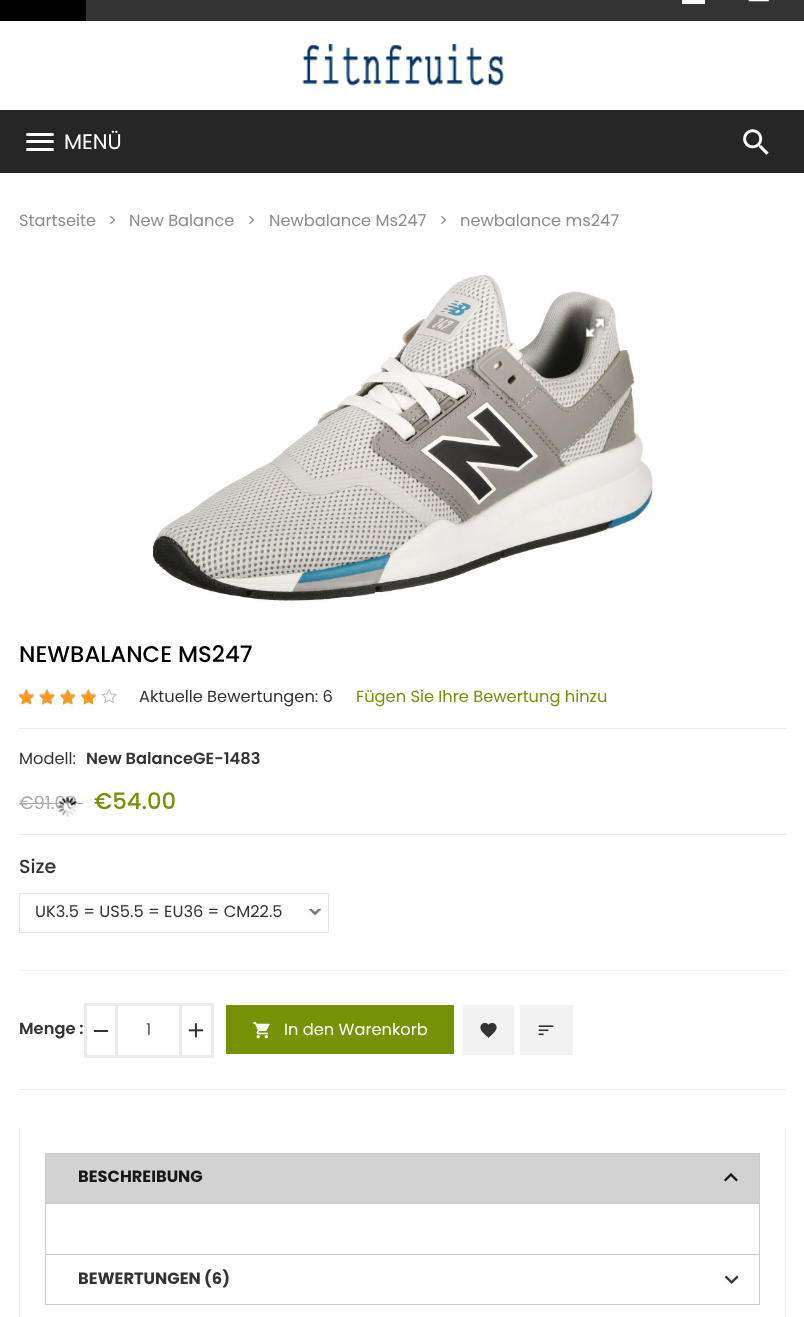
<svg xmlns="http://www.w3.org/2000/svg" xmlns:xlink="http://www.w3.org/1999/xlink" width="804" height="1317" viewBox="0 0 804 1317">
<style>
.cls-1{font:21px Poppins;fill:#ffffff}
.cls-2{font:16.25px Poppins;fill:#928989}
.cls-3{font:500 22.75px Poppins;fill:#000000}
.cls-4{font:16.25px Poppins;fill:#333333}
.cls-5{font:16.25px Poppins;fill:#769206}
.cls-6{font:600 16.25px Poppins;fill:#333333}
.cls-7{font:18px Poppins;fill:#aaaaaa}
.cls-8{font:500 22.75px Poppins;fill:#769206}
.cls-9{font:500 19px Poppins;fill:#333333}
.cls-10{font:16.25px Poppins;fill:#555555}
.cls-11{font:16.25px Poppins;fill:#ffffff}
.cls-12{font:bold 16.25px Poppins;fill:#181717}
.cls-13{font:bold 16.25px Poppins;fill:#333333}
</style>
<rect width="100%" height="100%" fill="#ffffff"/>
<rect fill="#333333" x="86" y="0" width="718" height="21"/>
<rect fill="#000000" x="0" y="0" width="86" height="21"/>
<rect fill="#ffffff" x="682" y="0" width="23" height="4"/>
<image xlink:href="image0.png" x="748" y="0" width="21" height="2"/>
<image xlink:href="image1.png" x="302" y="43" width="202" height="43"/>
<rect fill="#262626" x="0" y="110" width="804" height="63"/>
<rect fill="#ffffff" x="26" y="133" width="28" height="3" rx="1.5"/>
<rect fill="#ffffff" x="26" y="140" width="28" height="3" rx="1.5"/>
<rect fill="#ffffff" x="26" y="148" width="28" height="3" rx="1.5"/>
<image xlink:href="image2.png" x="743" y="129" width="26" height="26"/>
<image xlink:href="image3.png" x="153" y="274" width="500" height="328"/>
<image xlink:href="image4.png" x="583" y="314" width="26" height="28"/>
<image xlink:href="image5.png" x="18" y="689" width="99" height="15"/>
<image xlink:href="image6.png" x="19" y="690" width="77" height="15"/>
<rect fill="#ebebeb" x="19" y="728" width="767" height="1"/>
<rect fill="#ebebeb" x="19" y="834" width="767" height="1"/>
<rect fill="#aaaaaa" x="19" y="803" width="64" height="1"/>
<rect fill="#f5f5f5" x="19" y="970" width="767" height="1"/>
<image xlink:href="image8.png" x="308" y="909" width="14" height="7"/>
<rect fill="none" stroke="#e5e5e5" x="19.5" y="893.5" width="309" height="39"/>
<rect fill="none" stroke="#ebebeb" stroke-width="3" x="85.5" y="1004.5" width="127" height="52"/>
<rect fill="#ebebeb" x="115" y="1005" width="3" height="50"/>
<rect fill="#333333" x="94" y="1030" width="14" height="2"/>
<rect fill="#ebebeb" x="179" y="1005" width="3" height="50"/>
<image xlink:href="image9.png" x="188" y="1023" width="16" height="15"/>
<rect fill="#769206" x="226" y="1005" width="228" height="49"/>
<image xlink:href="image10.png" x="253" y="1022" width="17" height="17"/>
<rect fill="#f2f2f2" x="463" y="1005" width="51" height="50"/>
<image xlink:href="image11.png" x="480" y="1022" width="17" height="16"/>
<rect fill="#f2f2f2" x="520" y="1005" width="53" height="50"/>
<image xlink:href="image12.png" x="538" y="1025" width="16" height="11"/>
<rect fill="#ebebeb" x="19" y="1089" width="767" height="1"/>
<rect fill="#ebebeb" x="785" y="1128" width="1" height="189"/>
<rect fill="#ebebeb" x="19" y="1128" width="1" height="189"/>
<rect fill="#d2d2d2" stroke="#cccccc" x="45.5" y="1153.5" width="714" height="49"/>
<image xlink:href="image13.png" x="724" y="1173" width="14" height="9"/>
<rect fill="none" stroke="#cccccc" x="45.5" y="1203.5" width="714" height="51"/>
<rect fill="#cccccc" x="759" y="1255" width="1" height="50"/>
<rect fill="#cccccc" x="45" y="1304" width="715" height="1"/>
<rect fill="#cccccc" x="45" y="1255" width="1" height="50"/>
<image xlink:href="image14.png" x="724" y="1275" width="15" height="9"/>
<text class="cls-1" x="64" y="149">MENÜ</text>
<text class="cls-2" x="19" y="226">Startseite</text>
<text class="cls-2" x="108" y="226">&gt;</text>
<text class="cls-2" x="129" y="226">New Balance</text>
<text class="cls-2" x="247" y="226">&gt;</text>
<text class="cls-2" x="269" y="226">Newbalance Ms247</text>
<text class="cls-2" x="439" y="226">&gt;</text>
<text class="cls-2" x="460" y="226">newbalance ms247</text>
<text class="cls-3" x="19" y="662">NEWBALANCE MS247</text>
<text class="cls-4" x="139" y="702">Aktuelle Bewertungen: 6</text>
<text class="cls-5" x="356" y="702">Fügen Sie Ihre Bewertung hinzu</text>
<text class="cls-4" x="19" y="764">Modell:</text>
<text class="cls-6" x="86" y="764">New BalanceGE-1483</text>
<text class="cls-7" x="19" y="809">€91.00</text>
<text class="cls-8" x="94" y="809">€54.00</text>
<image xlink:href="image7.png" x="57" y="796" width="21" height="21"/>
<text class="cls-9" x="19" y="873">Size</text>
<text class="cls-4" x="35" y="917">UK3.5 = US5.5 = EU36 = CM22.5</text>
<text class="cls-6" x="19" y="1034">Menge :</text>
<text class="cls-10" x="146" y="1035">1</text>
<text class="cls-11" x="284" y="1035">In den Warenkorb</text>
<text class="cls-12" x="78" y="1182">BESCHREIBUNG</text>
<text class="cls-13" x="78" y="1284">BEWERTUNGEN (6)</text>
</svg>
